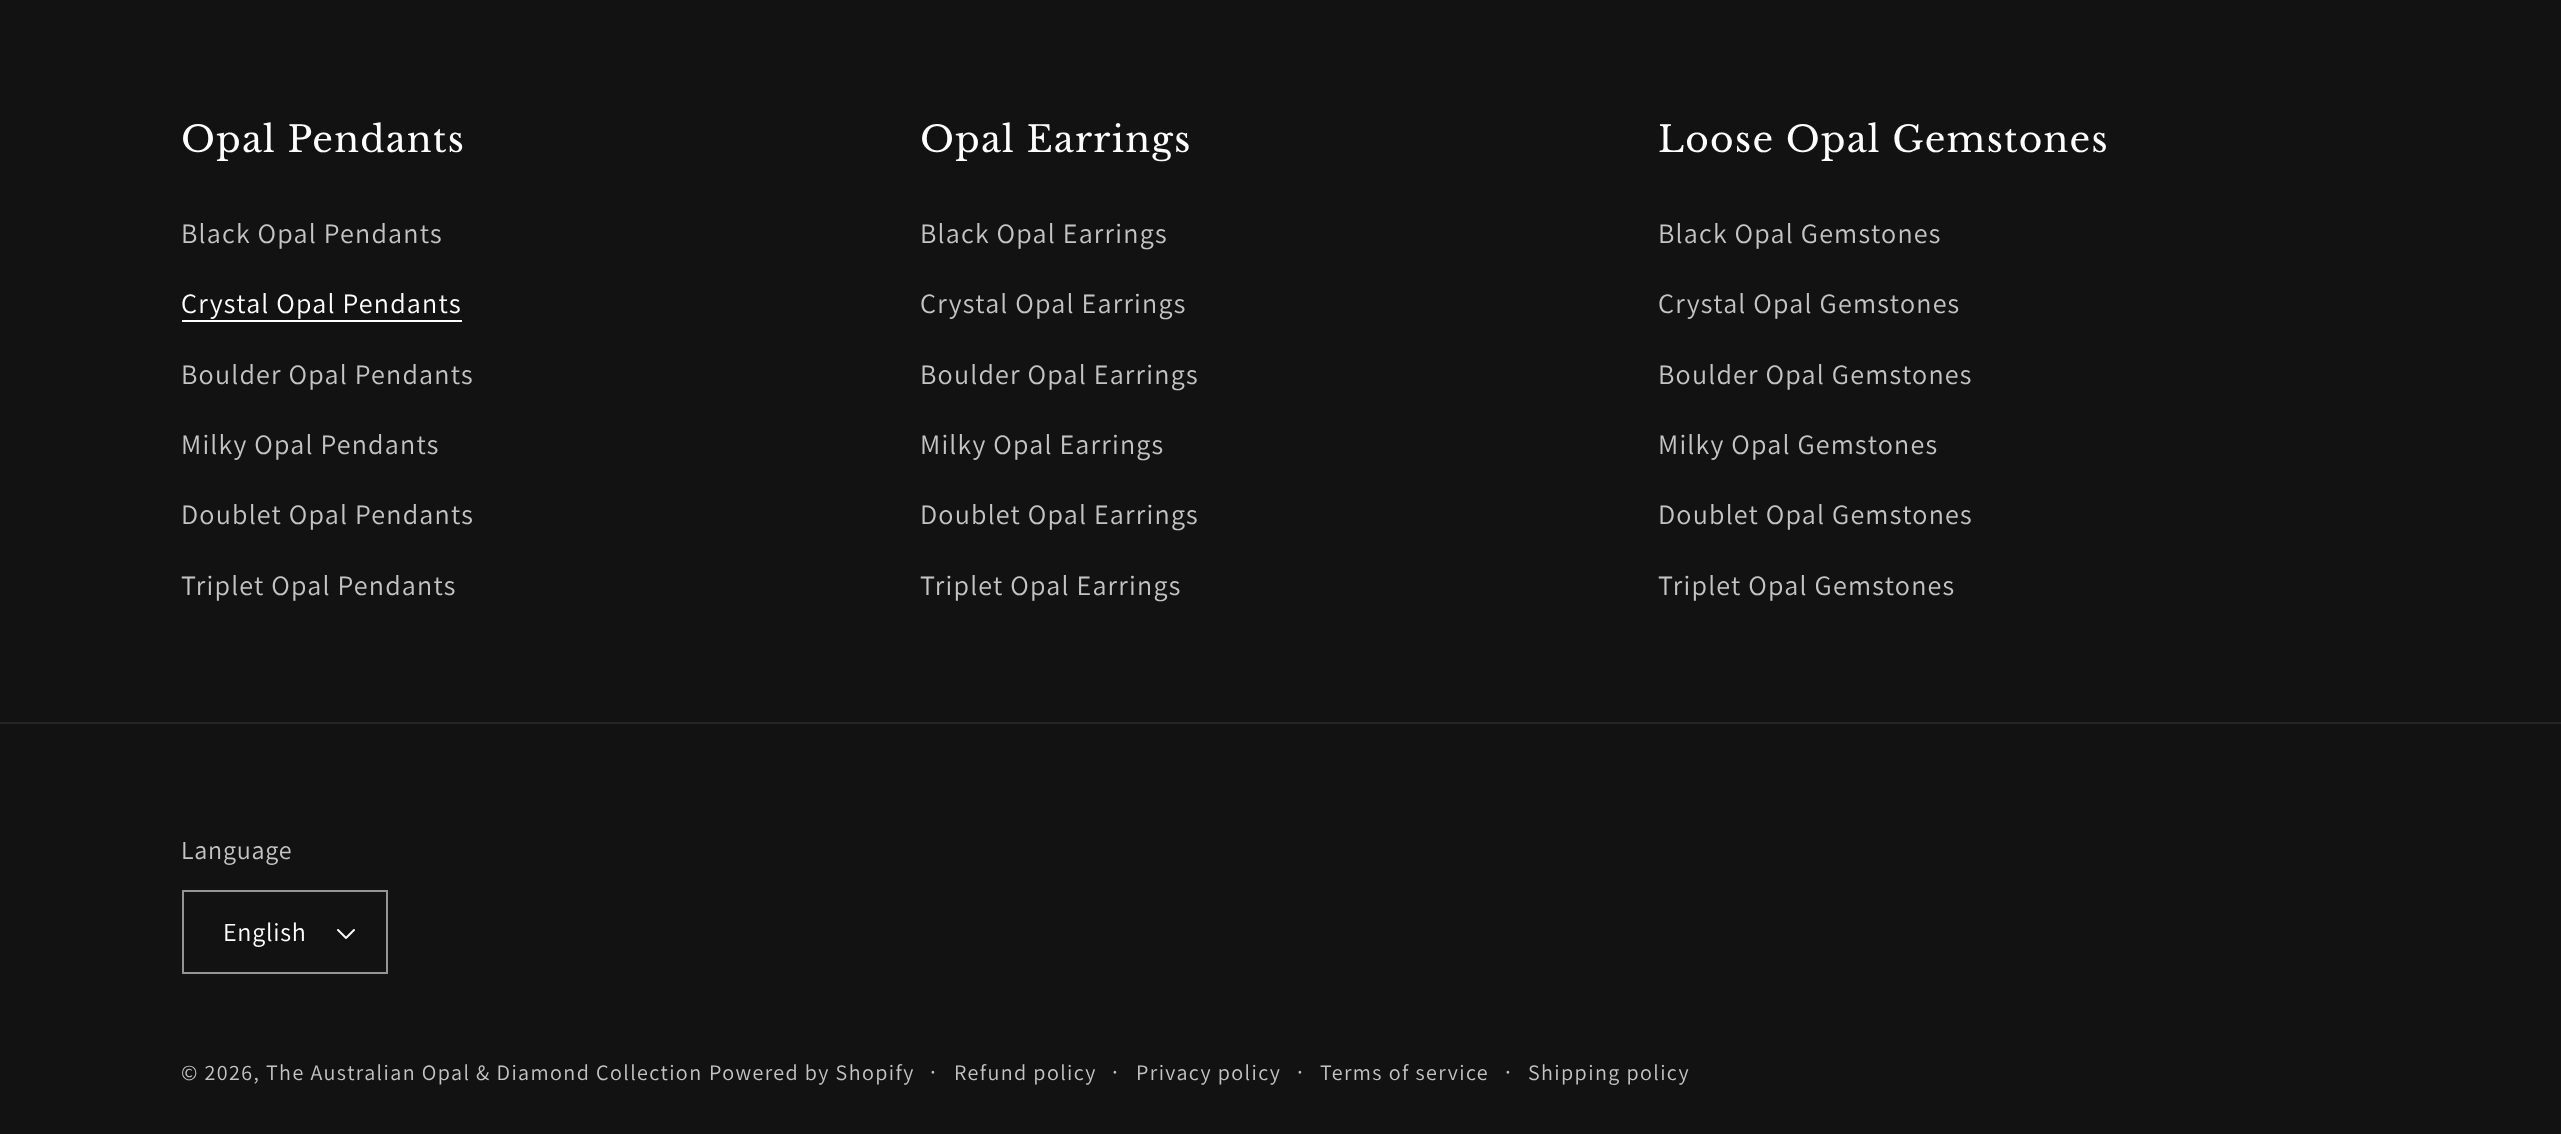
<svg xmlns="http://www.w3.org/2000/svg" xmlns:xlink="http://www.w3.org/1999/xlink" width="2561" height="1134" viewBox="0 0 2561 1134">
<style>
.cls-1{font:36px Libre Baskerville;letter-spacing:1.2px;fill:#ffffff}
.cls-2{font:28px Assistant;letter-spacing:1.2px;fill:#c4c4c4}
.cls-3{font:28px Assistant;letter-spacing:1.2px;fill:#ffffff}
.cls-4{font:26px Assistant;letter-spacing:0.75px;fill:#c4c4c4}
.cls-5{font:26px Assistant;letter-spacing:0.75px;fill:#ffffff}
.cls-6{font:22px Assistant;letter-spacing:1.4px;fill:#c4c4c4}
.cls-7{font:24px Assistant;letter-spacing:1.4px;fill:#c4c4c4}
</style>
<rect width="100%" height="100%" fill="#121212"/>
<rect fill="#ffffff" x="182" y="320" width="280" height="2"/>
<rect fill="#252525" x="0" y="722" width="2561" height="2"/>
<image xlink:href="image0.png" x="337" y="929" width="18" height="10"/>
<rect fill="none" stroke="#949494" stroke-width="2" x="183" y="891" width="204" height="82"/>
<text class="cls-1" x="181" y="152">Opal Pendants</text>
<text class="cls-2" x="181" y="243">Black Opal Pendants</text>
<text class="cls-3" x="181" y="313">Crystal Opal Pendants</text>
<text class="cls-2" x="181" y="384">Boulder Opal Pendants</text>
<text class="cls-2" x="181" y="454">Milky Opal Pendants</text>
<text class="cls-2" x="181" y="524">Doublet Opal Pendants</text>
<text class="cls-2" x="181" y="595">Triplet Opal Pendants</text>
<text class="cls-1" x="920" y="152">Opal Earrings</text>
<text class="cls-2" x="920" y="243">Black Opal Earrings</text>
<text class="cls-2" x="920" y="313">Crystal Opal Earrings</text>
<text class="cls-2" x="920" y="384">Boulder Opal Earrings</text>
<text class="cls-2" x="920" y="454">Milky Opal Earrings</text>
<text class="cls-2" x="920" y="524">Doublet Opal Earrings</text>
<text class="cls-2" x="920" y="595">Triplet Opal Earrings</text>
<text class="cls-1" x="1658" y="152">Loose Opal Gemstones</text>
<text class="cls-2" x="1658" y="243">Black Opal Gemstones</text>
<text class="cls-2" x="1658" y="313">Crystal Opal Gemstones</text>
<text class="cls-2" x="1658" y="384">Boulder Opal Gemstones</text>
<text class="cls-2" x="1658" y="454">Milky Opal Gemstones</text>
<text class="cls-2" x="1658" y="524">Doublet Opal Gemstones</text>
<text class="cls-2" x="1658" y="595">Triplet Opal Gemstones</text>
<text class="cls-4" x="181" y="859">Language</text>
<text class="cls-5" x="223" y="941">English</text>
<text class="cls-6" x="181" y="1080">© 2026, The Australian Opal &amp; Diamond Collection</text>
<text class="cls-6" x="709" y="1080">Powered by Shopify</text>
<text class="cls-7" x="930" y="1080">·</text>
<text class="cls-6" x="954" y="1080">Refund policy</text>
<text class="cls-7" x="1112" y="1080">·</text>
<text class="cls-6" x="1136" y="1080">Privacy policy</text>
<text class="cls-7" x="1297" y="1080">·</text>
<text class="cls-6" x="1320" y="1080">Terms of service</text>
<text class="cls-7" x="1505" y="1080">·</text>
<text class="cls-6" x="1528" y="1080">Shipping policy</text>
</svg>
